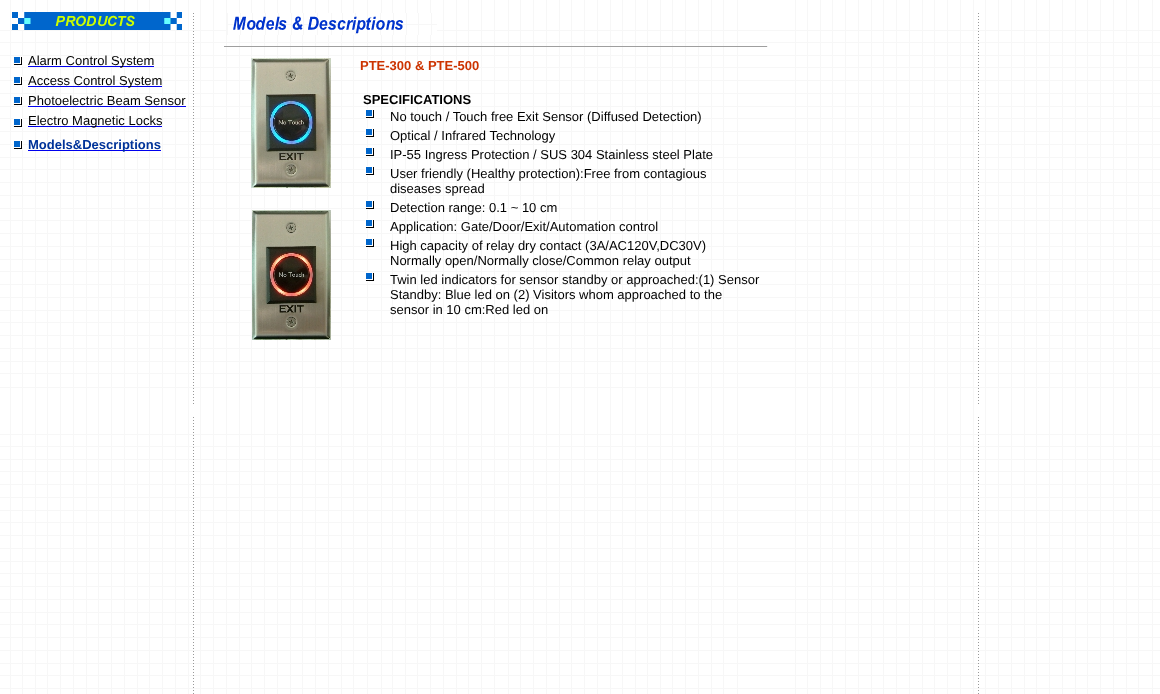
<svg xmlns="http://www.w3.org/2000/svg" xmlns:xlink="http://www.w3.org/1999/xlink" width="1160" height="694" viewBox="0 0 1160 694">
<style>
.cls-1{font:13px Liberation Sans;fill:#000000}
.cls-2{font:bold 13px Liberation Sans;fill:#003399}
.cls-3{font:bold 13px Liberation Sans;fill:#cc3300}
.cls-4{font:bold 13px Liberation Sans;fill:#000000}
</style>
<rect width="100%" height="100%" fill="#ffffff"/>
<image xlink:href="image0.png" x="0" y="0" width="1160" height="694"/>
<image xlink:href="image1.png" x="12" y="12" width="170" height="18"/>
<image xlink:href="image2.png" x="13" y="56" width="10" height="10"/>
<rect fill="#0000ee" x="28" y="66" width="126" height="1"/>
<image xlink:href="image2.png" x="13" y="76" width="10" height="10"/>
<rect fill="#0000ee" x="28" y="86" width="134" height="1"/>
<image xlink:href="image2.png" x="13" y="96" width="10" height="10"/>
<rect fill="#0000ee" x="28" y="106" width="158" height="1"/>
<image xlink:href="image2.png" x="13" y="118" width="10" height="10"/>
<rect fill="#0000ee" x="28" y="126" width="134" height="1"/>
<image xlink:href="image2.png" x="13" y="140" width="10" height="10"/>
<rect fill="#0000ee" x="28" y="150" width="133" height="1"/>
<image xlink:href="image3.png" x="227" y="13" width="210" height="22"/>
<rect fill="#9f9f9f" x="224" y="46" width="544" height="1"/>
<rect fill="#eeeeee" x="767" y="46" width="1" height="1"/>
<image xlink:href="image4.png" x="251" y="58" width="80" height="130"/>
<image xlink:href="image5.png" x="252" y="210" width="79" height="130"/>
<image xlink:href="image2.png" x="365" y="109" width="10" height="10"/>
<image xlink:href="image2.png" x="365" y="128" width="10" height="10"/>
<image xlink:href="image2.png" x="365" y="147" width="10" height="10"/>
<image xlink:href="image2.png" x="365" y="166" width="10" height="10"/>
<image xlink:href="image6.png" x="366" y="200" width="8" height="10"/>
<image xlink:href="image2.png" x="365" y="219" width="10" height="10"/>
<image xlink:href="image6.png" x="366" y="238" width="8" height="10"/>
<image xlink:href="image2.png" x="365" y="272" width="10" height="10"/>
<text class="cls-1"><tspan x="28" y="65">Alarm Control System</tspan><tspan x="28" y="85">Access Control System</tspan><tspan x="28" y="105">Photoelectric Beam Sensor</tspan><tspan x="28" y="125">Electro Magnetic Locks</tspan></text>
<text class="cls-2" x="28" y="149">Models&amp;Descriptions</text>
<text class="cls-3" x="360" y="70">PTE-300 &amp; PTE-500</text>
<text class="cls-4" x="363" y="104">SPECIFICATIONS</text>
<text class="cls-1"><tspan x="390" y="121">No touch / Touch free Exit Sensor (Diffused Detection)</tspan><tspan x="390" y="140">Optical / Infrared Technology</tspan><tspan x="390" y="159">IP-55 Ingress Protection / SUS 304 Stainless steel Plate</tspan><tspan x="390" y="178">User friendly (Healthy protection):Free from contagious</tspan><tspan x="390" y="193">diseases spread</tspan><tspan x="390" y="212">Detection range: 0.1 ~ 10 cm</tspan><tspan x="390" y="231">Application: Gate/Door/Exit/Automation control</tspan><tspan x="390" y="250">High capacity of relay dry contact (3A/AC120V,DC30V)</tspan><tspan x="390" y="265">Normally open/Normally close/Common relay output</tspan><tspan x="390" y="284">Twin led indicators for sensor standby or approached:(1) Sensor</tspan><tspan x="390" y="299">Standby: Blue led on (2) Visitors whom approached to the</tspan><tspan x="390" y="314">sensor in 10 cm:Red led on</tspan></text>
</svg>
